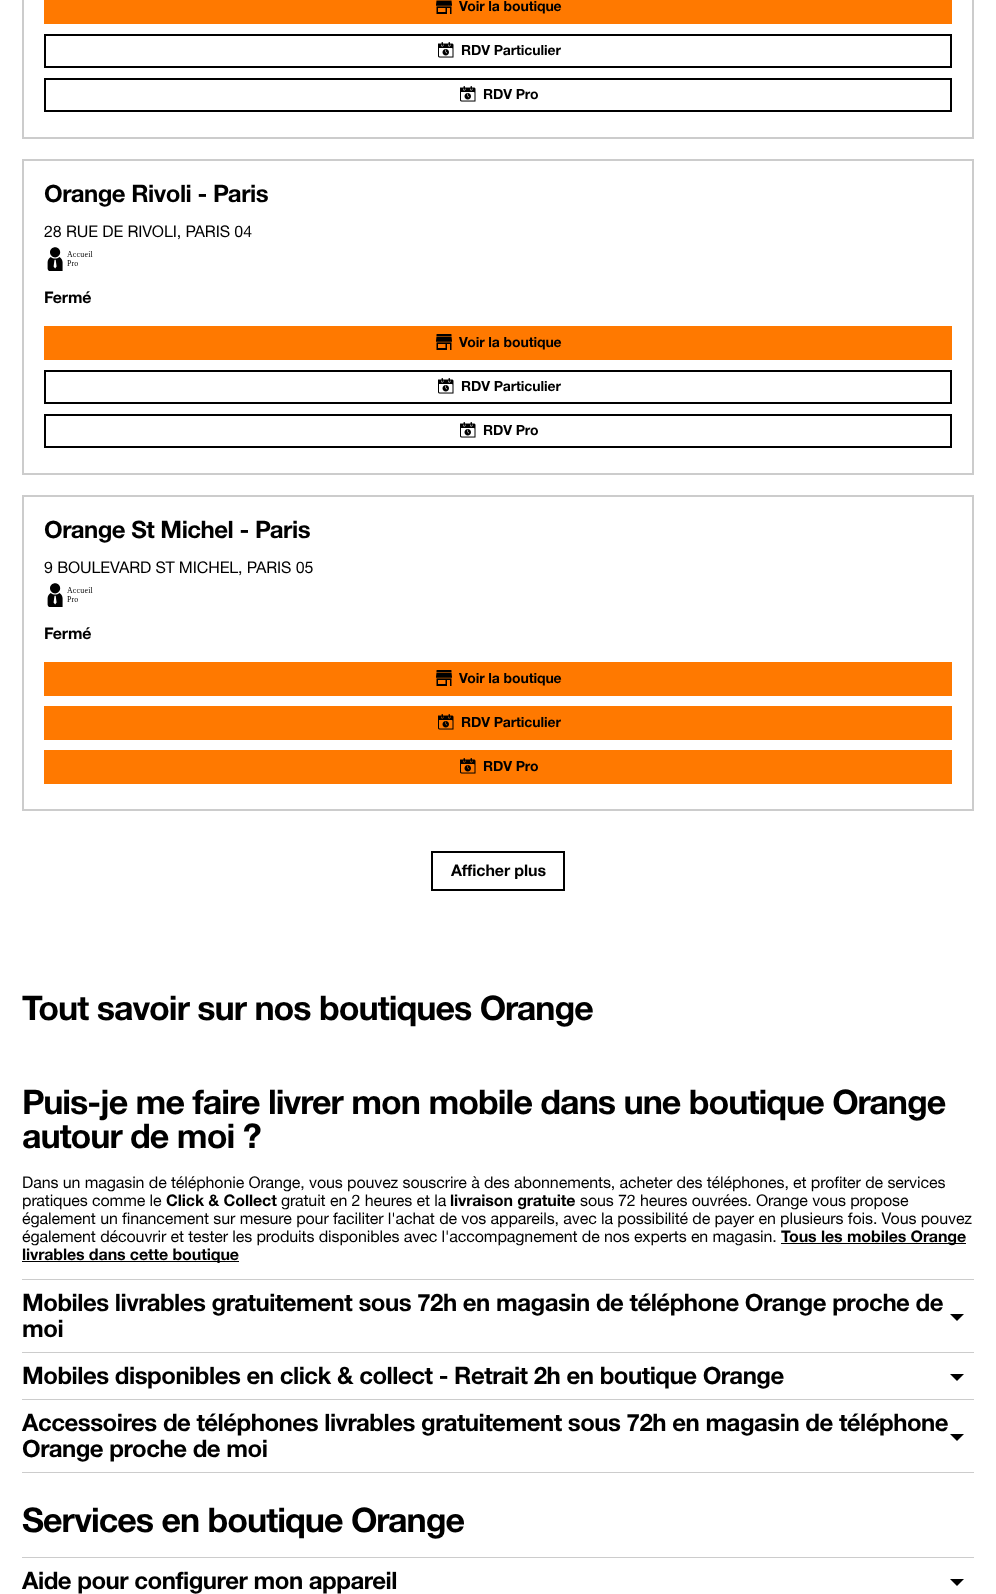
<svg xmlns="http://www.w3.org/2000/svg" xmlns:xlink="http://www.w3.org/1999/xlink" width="996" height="1594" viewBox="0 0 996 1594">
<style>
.cls-1{font:bold 14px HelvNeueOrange;letter-spacing:-0.1px;fill:#000000}
.cls-2{font:bold 24px HelvNeueOrange;letter-spacing:-0.5px;fill:#000000}
.cls-3{font:16px HelvNeueOrange;letter-spacing:-0.1px;fill:#000000}
.cls-4{font:bold 16px HelvNeueOrange;letter-spacing:-0.1px;fill:#000000}
.cls-5{font:bold 34px HelvNeueOrange;letter-spacing:-1px;fill:#000000}
</style>
<rect width="100%" height="100%" fill="#ffffff"/>
<rect fill="none" stroke="#cccccc" stroke-width="2" x="23" y="-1" width="950" height="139"/>
<rect fill="#ff7900" x="44" y="0" width="908" height="24"/>
<image xlink:href="image0.png" x="436" y="0" width="16" height="14"/>
<rect fill="none" stroke="#000000" stroke-width="2" x="45" y="35" width="906" height="32"/>
<image xlink:href="image1.png" x="438" y="42" width="16" height="16"/>
<rect fill="none" stroke="#000000" stroke-width="2" x="45" y="79" width="906" height="32"/>
<image xlink:href="image1.png" x="460" y="86" width="16" height="16"/>
<rect fill="none" stroke="#cccccc" stroke-width="2" x="23" y="160" width="950" height="314"/>
<image xlink:href="image2.png" x="47" y="247" width="46" height="24"/>
<rect fill="#ff7900" x="44" y="326" width="908" height="34"/>
<image xlink:href="image3.png" x="436" y="334" width="16" height="16"/>
<rect fill="none" stroke="#000000" stroke-width="2" x="45" y="371" width="906" height="32"/>
<image xlink:href="image1.png" x="438" y="378" width="16" height="16"/>
<rect fill="none" stroke="#000000" stroke-width="2" x="45" y="415" width="906" height="32"/>
<image xlink:href="image1.png" x="460" y="422" width="16" height="16"/>
<rect fill="none" stroke="#cccccc" stroke-width="2" x="23" y="496" width="950" height="314"/>
<image xlink:href="image2.png" x="47" y="583" width="46" height="24"/>
<rect fill="#ff7900" x="44" y="662" width="908" height="34"/>
<image xlink:href="image3.png" x="436" y="670" width="16" height="16"/>
<rect fill="#ff7900" x="44" y="706" width="908" height="34"/>
<image xlink:href="image4.png" x="438" y="714" width="16" height="16"/>
<rect fill="#ff7900" x="44" y="750" width="908" height="34"/>
<image xlink:href="image4.png" x="460" y="758" width="16" height="16"/>
<rect fill="none" stroke="#000000" stroke-width="2" x="432" y="852" width="132" height="38"/>
<rect fill="#000000" x="781" y="1243" width="185" height="1"/>
<rect fill="#000000" x="22" y="1261" width="217" height="1"/>
<rect fill="#cccccc" x="22" y="1279" width="952" height="1"/>
<path fill="#000000" d="M950 1314H964L957 1321Z"/>
<rect fill="#cccccc" x="22" y="1352" width="952" height="1"/>
<path fill="#000000" d="M950 1374H964L957 1381Z"/>
<rect fill="#cccccc" x="22" y="1472" width="952" height="1"/>
<rect fill="#cccccc" x="22" y="1399" width="952" height="1"/>
<path fill="#000000" d="M950 1434H964L957 1441Z"/>
<rect fill="#cccccc" x="22" y="1557" width="952" height="1"/>
<path fill="#000000" d="M950 1579H964L957 1586Z"/>
<text class="cls-1" x="459" y="11">Voir la boutique</text>
<text class="cls-1" x="461" y="55">RDV Particulier</text>
<text class="cls-1" x="483" y="99">RDV Pro</text>
<text class="cls-2" x="44" y="202">Orange Rivoli - Paris</text>
<text class="cls-3" x="44" y="237">28 RUE DE RIVOLI, PARIS 04</text>
<text class="cls-4" x="44" y="303">Fermé</text>
<text class="cls-1" x="459" y="347">Voir la boutique</text>
<text class="cls-1" x="461" y="391">RDV Particulier</text>
<text class="cls-1" x="483" y="435">RDV Pro</text>
<text class="cls-2" x="44" y="538">Orange St Michel - Paris</text>
<text class="cls-3" x="44" y="573">9 BOULEVARD ST MICHEL, PARIS 05</text>
<text class="cls-4" x="44" y="639">Fermé</text>
<text class="cls-1" x="459" y="683">Voir la boutique</text>
<text class="cls-1" x="461" y="727">RDV Particulier</text>
<text class="cls-1" x="483" y="771">RDV Pro</text>
<text class="cls-4" x="451" y="876">Afficher plus</text>
<text class="cls-5" x="22" y="1020">Tout savoir sur nos boutiques Orange</text>
<text class="cls-5"><tspan x="22" y="1114">Puis-je me faire livrer mon mobile dans une boutique Orange</tspan><tspan x="22" y="1148">autour de moi ?</tspan></text>
<text class="cls-3"><tspan x="22" y="1188">Dans un magasin de téléphonie Orange, vous pouvez souscrire à des abonnements, acheter des téléphones, et profiter de services</tspan><tspan x="22" y="1206">pratiques comme le</tspan></text>
<text class="cls-4" x="166" y="1206">Click &amp; Collect</text>
<text class="cls-3" x="281" y="1206">gratuit en 2 heures et la</text>
<text class="cls-4" x="450" y="1206">livraison gratuite</text>
<text class="cls-3" x="580" y="1206">sous 72 heures ouvrées. Orange vous propose</text>
<text class="cls-3"><tspan x="22" y="1224">également un financement sur mesure pour faciliter l'achat de vos appareils, avec la possibilité de payer en plusieurs fois. Vous pouvez</tspan><tspan x="22" y="1242">également découvrir et tester les produits disponibles avec l'accompagnement de nos experts en magasin.</tspan></text>
<text class="cls-4" x="781" y="1242">Tous les mobiles Orange</text>
<text class="cls-4" x="22" y="1260">livrables dans cette boutique</text>
<text class="cls-2"><tspan x="22" y="1311">Mobiles livrables gratuitement sous 72h en magasin de téléphone Orange proche de</tspan><tspan x="22" y="1337">moi</tspan><tspan x="22" y="1384">Mobiles disponibles en click &amp; collect - Retrait 2h en boutique Orange</tspan><tspan x="22" y="1431">Accessoires de téléphones livrables gratuitement sous 72h en magasin de téléphone</tspan><tspan x="22" y="1457">Orange proche de moi</tspan></text>
<text class="cls-5" x="22" y="1532">Services en boutique Orange</text>
<text class="cls-2" x="22" y="1589">Aide pour configurer mon appareil</text>
</svg>
